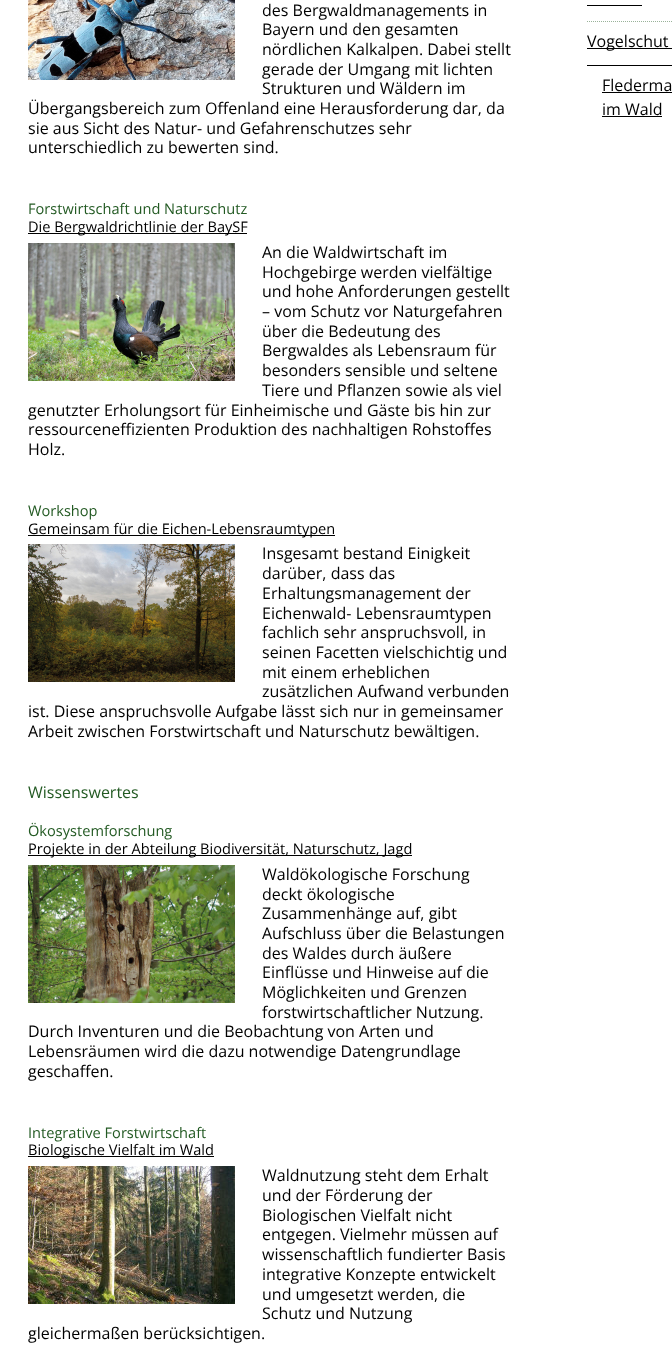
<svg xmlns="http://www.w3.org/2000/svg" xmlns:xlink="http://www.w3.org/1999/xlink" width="672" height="1359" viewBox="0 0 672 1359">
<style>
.cls-1{font:16px Open Sans;fill:#000000}
.cls-2{font:14.6px Open Sans;fill:#235a23}
.cls-3{font:14.6px Open Sans;fill:#000000}
.cls-4{font:16px Open Sans;fill:#235a23}
</style>
<rect width="100%" height="100%" fill="#ffffff"/>
<image xlink:href="image0.png" x="28" y="0" width="207" height="80"/>
<rect fill="#000000" x="28" y="233" width="219" height="1"/>
<image xlink:href="image1.png" x="28" y="243" width="207" height="138"/>
<rect fill="#000000" x="28" y="535" width="307" height="1"/>
<image xlink:href="image2.png" x="28" y="544" width="207" height="138"/>
<rect fill="#000000" x="28" y="855" width="384" height="1"/>
<image xlink:href="image3.png" x="28" y="865" width="207" height="138"/>
<rect fill="#000000" x="28" y="1156" width="186" height="1"/>
<image xlink:href="image4.png" x="28" y="1166" width="207" height="138"/>
<path fill="none" stroke="#99b299" stroke-dasharray="1 1" d="M587 21.5H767"/>
<rect fill="#000000" x="587" y="5" width="55" height="1"/>
<rect fill="#000000" x="587" y="48" width="85" height="1"/>
<rect fill="#000000" x="587" y="65" width="85" height="1"/>
<rect fill="#000000" x="602" y="92" width="70" height="1"/>
<rect fill="#000000" x="602" y="116" width="60" height="1"/>
<text class="cls-1"><tspan x="262" y="16">des Bergwaldmanagements in</tspan><tspan x="262" y="35">Bayern und den gesamten</tspan><tspan x="262" y="55">nördlichen Kalkalpen. Dabei stellt</tspan><tspan x="262" y="75">gerade der Umgang mit lichten</tspan><tspan x="262" y="94">Strukturen und Wäldern im</tspan></text>
<text class="cls-1"><tspan x="28" y="114">Übergangsbereich zum Offenland eine Herausforderung dar, da</tspan><tspan x="28" y="134">sie aus Sicht des Natur- und Gefahrenschutzes sehr</tspan><tspan x="28" y="153">unterschiedlich zu bewerten sind.</tspan></text>
<text class="cls-2" x="28" y="214">Forstwirtschaft und Naturschutz</text>
<text class="cls-3" x="28" y="232">Die Bergwaldrichtlinie der BaySF</text>
<text class="cls-1"><tspan x="262" y="258">An die Waldwirtschaft im</tspan><tspan x="262" y="278">Hochgebirge werden vielfältige</tspan><tspan x="262" y="297">und hohe Anforderungen gestellt</tspan><tspan x="262" y="317">– vom Schutz vor Naturgefahren</tspan><tspan x="262" y="337">über die Bedeutung des</tspan><tspan x="262" y="356">Bergwaldes als Lebensraum für</tspan><tspan x="262" y="376">besonders sensible und seltene</tspan><tspan x="262" y="396">Tiere und Pflanzen sowie als viel</tspan></text>
<text class="cls-1"><tspan x="28" y="416">genutzter Erholungsort für Einheimische und Gäste bis hin zur</tspan><tspan x="28" y="435">ressourceneffizienten Produktion des nachhaltigen Rohstoffes</tspan><tspan x="28" y="455">Holz.</tspan></text>
<text class="cls-2" x="28" y="516">Workshop</text>
<text class="cls-3" x="28" y="534">Gemeinsam für die Eichen-Lebensraumtypen</text>
<text class="cls-1"><tspan x="262" y="559">Insgesamt bestand Einigkeit</tspan><tspan x="262" y="579">darüber, dass das</tspan><tspan x="262" y="599">Erhaltungsmanagement der</tspan><tspan x="262" y="619">Eichenwald- Lebensraumtypen</tspan><tspan x="262" y="638">fachlich sehr anspruchsvoll, in</tspan><tspan x="262" y="658">seinen Facetten vielschichtig und</tspan><tspan x="262" y="678">mit einem erheblichen</tspan><tspan x="262" y="697">zusätzlichen Aufwand verbunden</tspan></text>
<text class="cls-1"><tspan x="28" y="717">ist. Diese anspruchsvolle Aufgabe lässt sich nur in gemeinsamer</tspan><tspan x="28" y="737">Arbeit zwischen Forstwirtschaft und Naturschutz bewältigen.</tspan></text>
<text class="cls-4" x="28" y="798">Wissenswertes</text>
<text class="cls-2" x="28" y="836">Ökosystemforschung</text>
<text class="cls-3" x="28" y="854">Projekte in der Abteilung Biodiversität, Naturschutz, Jagd</text>
<text class="cls-1"><tspan x="262" y="880">Waldökologische Forschung</tspan><tspan x="262" y="900">deckt ökologische</tspan><tspan x="262" y="919">Zusammenhänge auf, gibt</tspan><tspan x="262" y="939">Aufschluss über die Belastungen</tspan><tspan x="262" y="959">des Waldes durch äußere</tspan><tspan x="262" y="978">Einflüsse und Hinweise auf die</tspan><tspan x="262" y="998">Möglichkeiten und Grenzen</tspan><tspan x="262" y="1018">forstwirtschaftlicher Nutzung.</tspan></text>
<text class="cls-1"><tspan x="28" y="1037">Durch Inventuren und die Beobachtung von Arten und</tspan><tspan x="28" y="1057">Lebensräumen wird die dazu notwendige Datengrundlage</tspan><tspan x="28" y="1077">geschaffen.</tspan></text>
<text class="cls-2" x="28" y="1138">Integrative Forstwirtschaft</text>
<text class="cls-3" x="28" y="1155">Biologische Vielfalt im Wald</text>
<text class="cls-1"><tspan x="262" y="1181">Waldnutzung steht dem Erhalt</tspan><tspan x="262" y="1201">und der Förderung der</tspan><tspan x="262" y="1221">Biologischen Vielfalt nicht</tspan><tspan x="262" y="1240">entgegen. Vielmehr müssen auf</tspan><tspan x="262" y="1260">wissenschaftlich fundierter Basis</tspan><tspan x="262" y="1280">integrative Konzepte entwickelt</tspan><tspan x="262" y="1300">und umgesetzt werden, die</tspan><tspan x="262" y="1319">Schutz und Nutzung</tspan></text>
<text class="cls-1" x="28" y="1339">gleichermaßen berücksichtigen.</text>
<text class="cls-1" x="587" y="47">Vogelschut</text>
<text class="cls-1"><tspan x="602" y="91">Flederma</tspan><tspan x="602" y="115">im Wald</tspan></text>
</svg>
